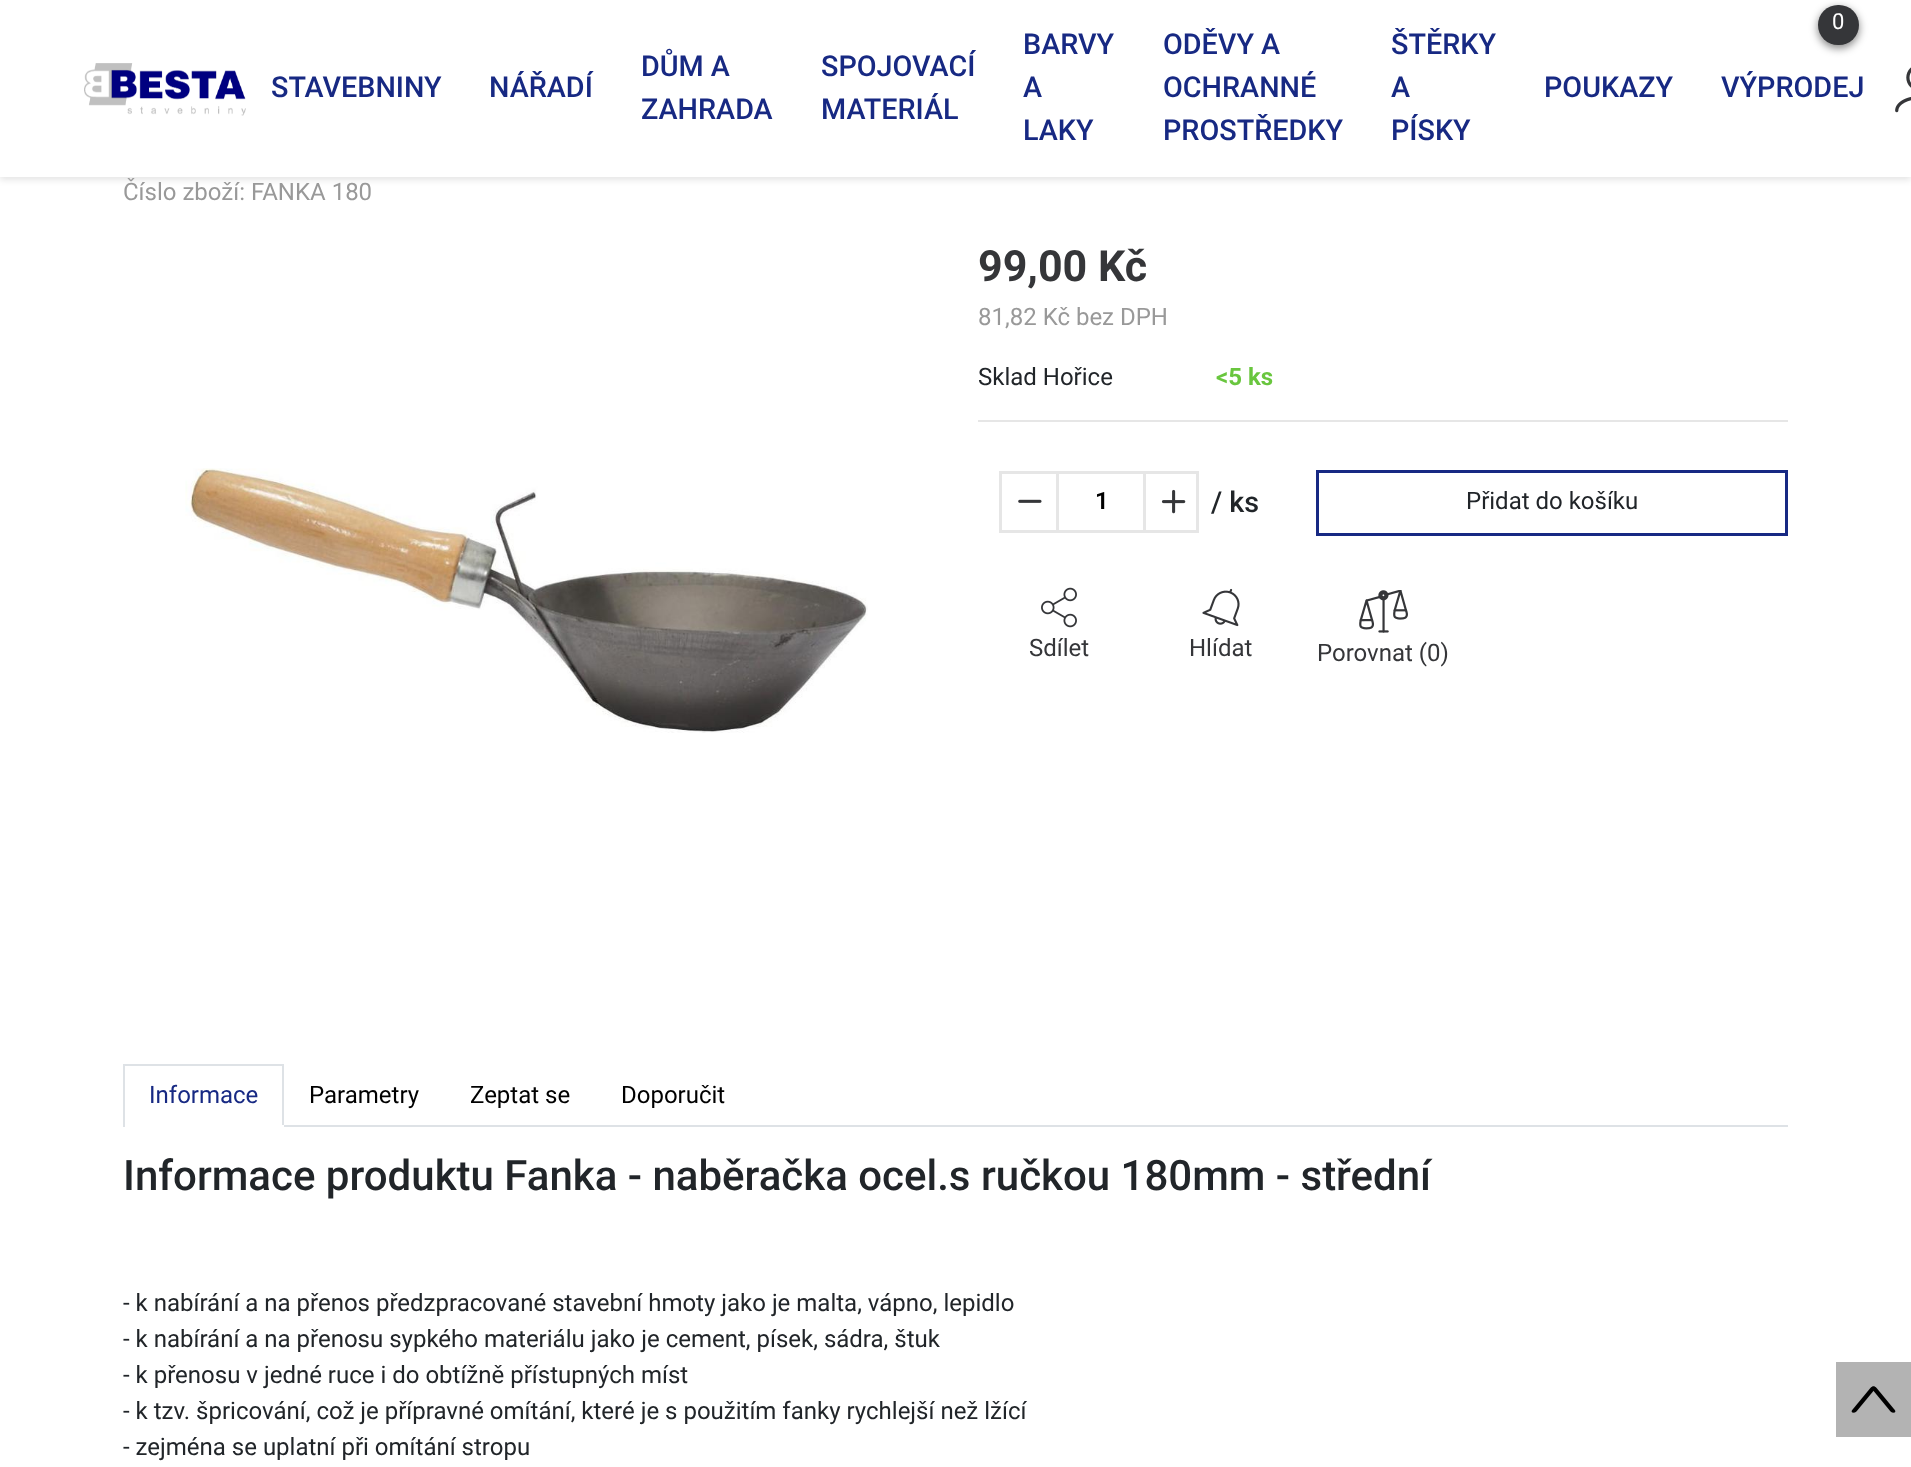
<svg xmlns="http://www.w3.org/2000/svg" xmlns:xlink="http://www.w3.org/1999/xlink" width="1911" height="1467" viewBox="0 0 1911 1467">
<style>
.cls-1{font:22px Roboto;fill:#ffffff}
.cls-2{font:500 28.75px Roboto;fill:#172983}
.cls-3{font:24px Roboto;fill:#999999}
.cls-4{font:bold 43px Roboto;fill:#353639}
.cls-5{font:24px Roboto;fill:#212529}
.cls-6{font:bold 24px Roboto;fill:#69c63e}
.cls-7{font:600 24px Roboto;fill:#000000}
.cls-8{font:500 28.75px Roboto;fill:#212529}
.cls-9{font:24px Roboto;fill:#353639}
.cls-10{font:24px Roboto;fill:#172983}
.cls-11{font:24px Roboto;fill:#000000}
.cls-12{font:500 42px Roboto;fill:#212529}
</style>
<rect width="100%" height="100%" fill="#ffffff"/>
<rect fill="#010202" fill-opacity="0.1" filter="blur(3px)" x="0" y="3" width="1911" height="177"/>
<rect fill="#ffffff" x="0" y="0" width="1911" height="177"/>
<rect fill="#010202" fill-opacity="0.5" filter="blur(4px)" x="1818" y="8" width="41" height="40" rx="20"/>
<rect fill="#353639" x="1818" y="5" width="41" height="40" rx="20"/>
<image xlink:href="image0.png" x="84" y="63" width="162" height="53"/>
<image xlink:href="image1.png" x="1895" y="67" width="16" height="46"/>
<image xlink:href="image2.png" x="185" y="468" width="683" height="265"/>
<rect fill="#e6e6e6" x="978" y="420" width="810" height="2"/>
<rect fill="none" stroke="#e6e6e6" stroke-width="3" x="1000.5" y="472.5" width="197" height="59"/>
<image xlink:href="image3.png" x="1018" y="499" width="24" height="4"/>
<rect fill="#e6e6e6" x="1143" y="474" width="3" height="56"/>
<rect fill="#e6e6e6" x="1056" y="474" width="3" height="56"/>
<image xlink:href="image4.png" x="1161" y="489" width="25" height="25"/>
<rect fill="none" stroke="#172983" stroke-width="3" x="1317.5" y="471.5" width="469" height="63"/>
<image xlink:href="image5.png" x="1041" y="587" width="36" height="41"/>
<image xlink:href="image6.png" x="1202" y="588" width="38" height="39"/>
<image xlink:href="image7.png" x="1359" y="590" width="49" height="43"/>
<rect fill="#dee2e6" x="284" y="1125" width="1504" height="2"/>
<rect fill="#dee2e6" x="123" y="1064" width="161" height="2"/>
<rect fill="#dee2e6" x="282" y="1064" width="2" height="63"/>
<rect fill="#ffffff" x="282" y="1125" width="2" height="2"/>
<rect fill="#dee2e6" x="123" y="1064" width="2" height="63"/>
<rect fill="#b3b3b3" x="1836" y="1362" width="75" height="75"/>
<image xlink:href="image8.png" x="1851" y="1386" width="45" height="27"/>
<text class="cls-1" x="1832" y="29">0</text>
<text class="cls-2" x="271" y="97">STAVEBNINY</text>
<text class="cls-2" x="489" y="97">NÁŘADÍ</text>
<text class="cls-2"><tspan x="641" y="76">DŮM A</tspan><tspan x="641" y="119">ZAHRADA</tspan></text>
<text class="cls-2"><tspan x="821" y="76">SPOJOVACÍ</tspan><tspan x="821" y="119">MATERIÁL</tspan></text>
<text class="cls-2"><tspan x="1023" y="54">BARVY</tspan><tspan x="1023" y="97">A</tspan><tspan x="1023" y="140">LAKY</tspan></text>
<text class="cls-2"><tspan x="1163" y="54">ODĚVY A</tspan><tspan x="1163" y="97">OCHRANNÉ</tspan><tspan x="1163" y="140">PROSTŘEDKY</tspan></text>
<text class="cls-2"><tspan x="1391" y="54">ŠTĚRKY</tspan><tspan x="1391" y="97">A</tspan><tspan x="1391" y="140">PÍSKY</tspan></text>
<text class="cls-2" x="1544" y="97">POUKAZY</text>
<text class="cls-2" x="1721" y="97">VÝPRODEJ</text>
<text class="cls-3" x="123" y="200">Číslo zboží: FANKA 180</text>
<text class="cls-4" x="978" y="281">99,00 Kč</text>
<text class="cls-3" x="978" y="325">81,82 Kč bez DPH</text>
<text class="cls-5" x="978" y="385">Sklad Hořice</text>
<text class="cls-6" x="1216" y="385">&lt;5 ks</text>
<text class="cls-7" x="1095" y="509">1</text>
<text class="cls-8" x="1211" y="512">/ ks</text>
<text class="cls-5" x="1466" y="509">Přidat do košíku</text>
<text class="cls-9" x="1029" y="656">Sdílet</text>
<text class="cls-9" x="1189" y="656">Hlídat</text>
<text class="cls-9" x="1317" y="661">Porovnat (0)</text>
<text class="cls-10" x="149" y="1103">Informace</text>
<text class="cls-11" x="309" y="1103">Parametry</text>
<text class="cls-11" x="470" y="1103">Zeptat se</text>
<text class="cls-11" x="621" y="1103">Doporučit</text>
<text class="cls-12" x="123" y="1190">Informace produktu Fanka - naběračka ocel.s ručkou 180mm - střední</text>
<text class="cls-5"><tspan x="123" y="1311">- k nabírání a na přenos předzpracované stavební hmoty jako je malta, vápno, lepidlo</tspan><tspan x="123" y="1347">- k nabírání a na přenosu sypkého materiálu jako je cement, písek, sádra, štuk</tspan><tspan x="123" y="1383">- k přenosu v jedné ruce i do obtížně přístupných míst</tspan><tspan x="123" y="1419">- k tzv. špricování, což je přípravné omítání, které je s použitím fanky rychlejší než lžící</tspan><tspan x="123" y="1455">- zejména se uplatní při omítání stropu</tspan></text>
</svg>
